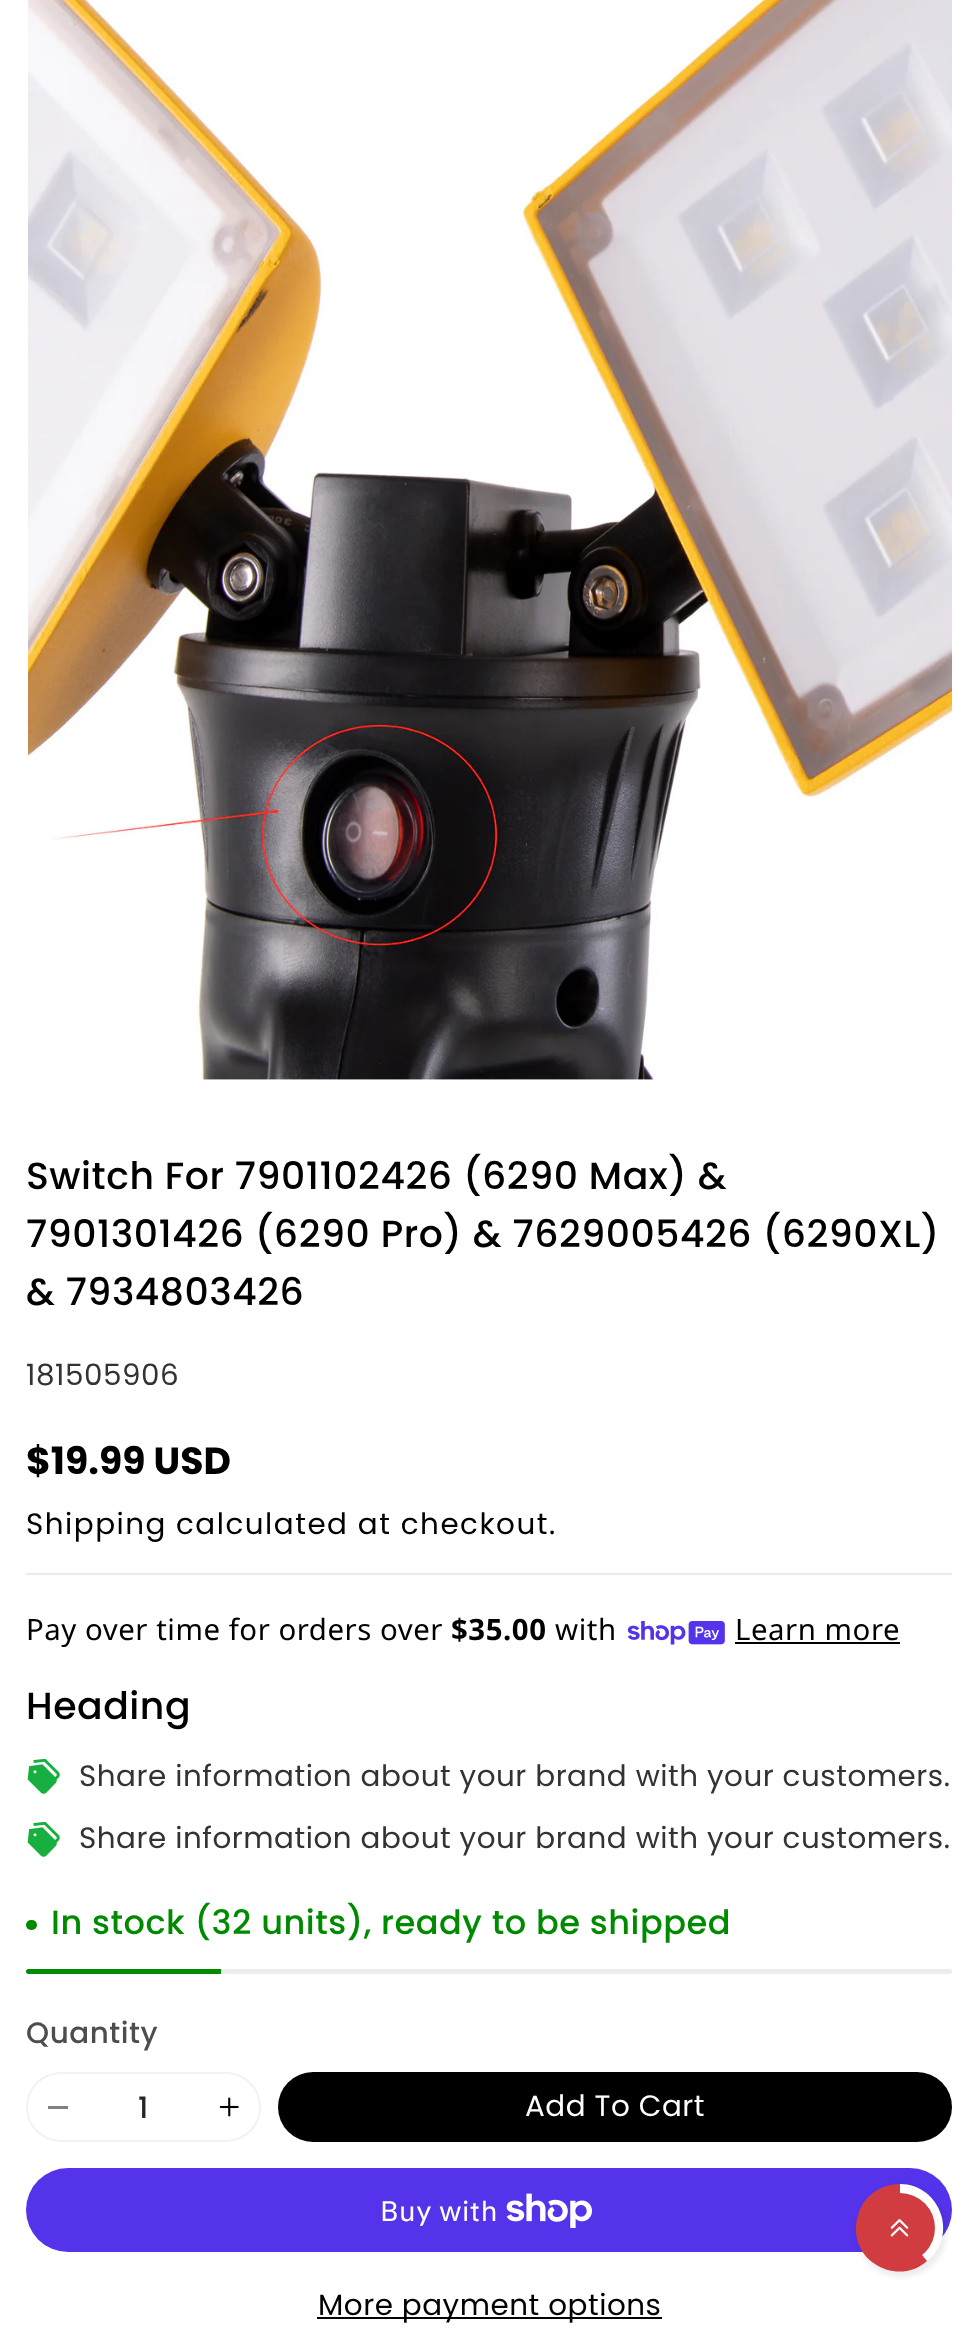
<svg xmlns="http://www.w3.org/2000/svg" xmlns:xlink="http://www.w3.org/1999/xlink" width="978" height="2341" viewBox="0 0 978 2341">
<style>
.cls-1{font:500 37.8px Poppins;letter-spacing:0.53px;fill:#000000}
.cls-2{font:29.4px Poppins;letter-spacing:0.53px;fill:#333333}
.cls-3{font:bold 37.8px Poppins;fill:#000000}
.cls-4{font:29.4px Poppins;letter-spacing:1.5px;fill:#000000}
.cls-5{font:29.4px Noto Sans;letter-spacing:0.53px;fill:#000000}
.cls-6{font:bold 29.4px Noto Sans;letter-spacing:0.53px;fill:#000000}
.cls-7{font:500 33.6px Poppins;letter-spacing:0.53px;fill:#008a00}
.cls-8{font:500 29.4px Poppins;letter-spacing:0.53px;fill:#4d4d4d}
.cls-9{font:500 29.4px Poppins;fill:#262626}
.cls-10{font:29.4px Poppins;letter-spacing:0.53px;fill:#ffffff}
.cls-11{font:28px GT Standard;letter-spacing:0.53px;fill:#ffffff}
.cls-12{font:29.4px Poppins;letter-spacing:0.53px;fill:#000000}
</style>
<rect width="100%" height="100%" fill="#ffffff"/>
<image xlink:href="image0.png" x="28" y="0" width="924" height="1080"/>
<rect fill="#ebebeb" x="26" y="1573" width="926" height="2"/>
<image xlink:href="image1.png" x="627" y="1621" width="98" height="24"/>
<rect fill="#000000" x="735" y="1642" width="165" height="2"/>
<image xlink:href="image2.png" x="27" y="1759" width="33" height="35"/>
<image xlink:href="image2.png" x="27" y="1822" width="33" height="35"/>
<rect fill="#008a00" x="26" y="1920" width="11" height="10" rx="5"/>
<rect fill="#ededed" x="26" y="1969" width="926" height="5" rx="2.5"/>
<path fill="#008a00" d="M28.5 1969H221V1974H28.5C27 1974 26 1973 26 1971.5C26 1970 27 1969 28.5 1969Z"/>
<rect fill="#808080" x="48" y="2106" width="20" height="3"/>
<image xlink:href="image3.png" x="219" y="2097" width="20" height="20"/>
<rect fill="none" stroke="#f2f2f2" stroke-width="2" x="27" y="2073" width="233" height="68" rx="34"/>
<rect fill="#000000" x="278" y="2072" width="674" height="70" rx="35"/>
<rect fill="#5433eb" x="26" y="2168" width="926" height="84" rx="42"/>
<image xlink:href="image4.png" x="506" y="2193" width="86" height="35"/>
<rect fill="#000000" x="317" y="2317" width="345" height="2"/>
<rect fill="#000000" fill-opacity="0.07" filter="blur(2.5px)" x="856" y="2186" width="91" height="91" rx="45.5"/>
<path fill="#ffffff" d="M900 2228V2184C940 2184 959 2236 927 2261Z"/>
<path fill="#d03c3f" d="M900 2228L927 2261C913 2274 891 2275 875 2264C859 2254 852 2234 858 2215C863 2197 880 2184 900 2184Z"/>
<circle fill="#d03c3f" cx="900" cy="2228" r="35"/>
<image xlink:href="image5.png" x="890" y="2219" width="19" height="18"/>
<text class="cls-1"><tspan x="26" y="1189">Switch For 7901102426 (6290 Max) &amp;</tspan><tspan x="26" y="1247">7901301426 (6290 Pro) &amp; 7629005426 (6290XL)</tspan><tspan x="26" y="1305">&amp; 7934803426</tspan></text>
<text class="cls-2" x="26" y="1385">181505906</text>
<text class="cls-3" x="26" y="1474">$19.99 USD</text>
<text class="cls-4" x="26" y="1534">Shipping</text>
<text class="cls-4" x="176" y="1534">calculated at checkout.</text>
<text class="cls-5" x="26" y="1640">Pay over time for orders over</text>
<text class="cls-6" x="451" y="1640">$35.00</text>
<text class="cls-5" x="555" y="1640">with</text>
<text class="cls-5" x="735" y="1640">Learn more</text>
<text class="cls-1" x="26" y="1719">Heading</text>
<text class="cls-2" x="79" y="1786">Share information about your brand with your customers.</text>
<text class="cls-2" x="79" y="1848">Share information about your brand with your customers.</text>
<text class="cls-7" x="51" y="1934">In stock (32 units), ready to be shipped</text>
<text class="cls-8" x="26" y="2043">Quantity</text>
<text class="cls-9" x="138" y="2118">1</text>
<text class="cls-10" x="525" y="2116">Add To Cart</text>
<text class="cls-11" x="380" y="2221">Buy with</text>
<text class="cls-12" x="318" y="2315">More payment options</text>
</svg>
